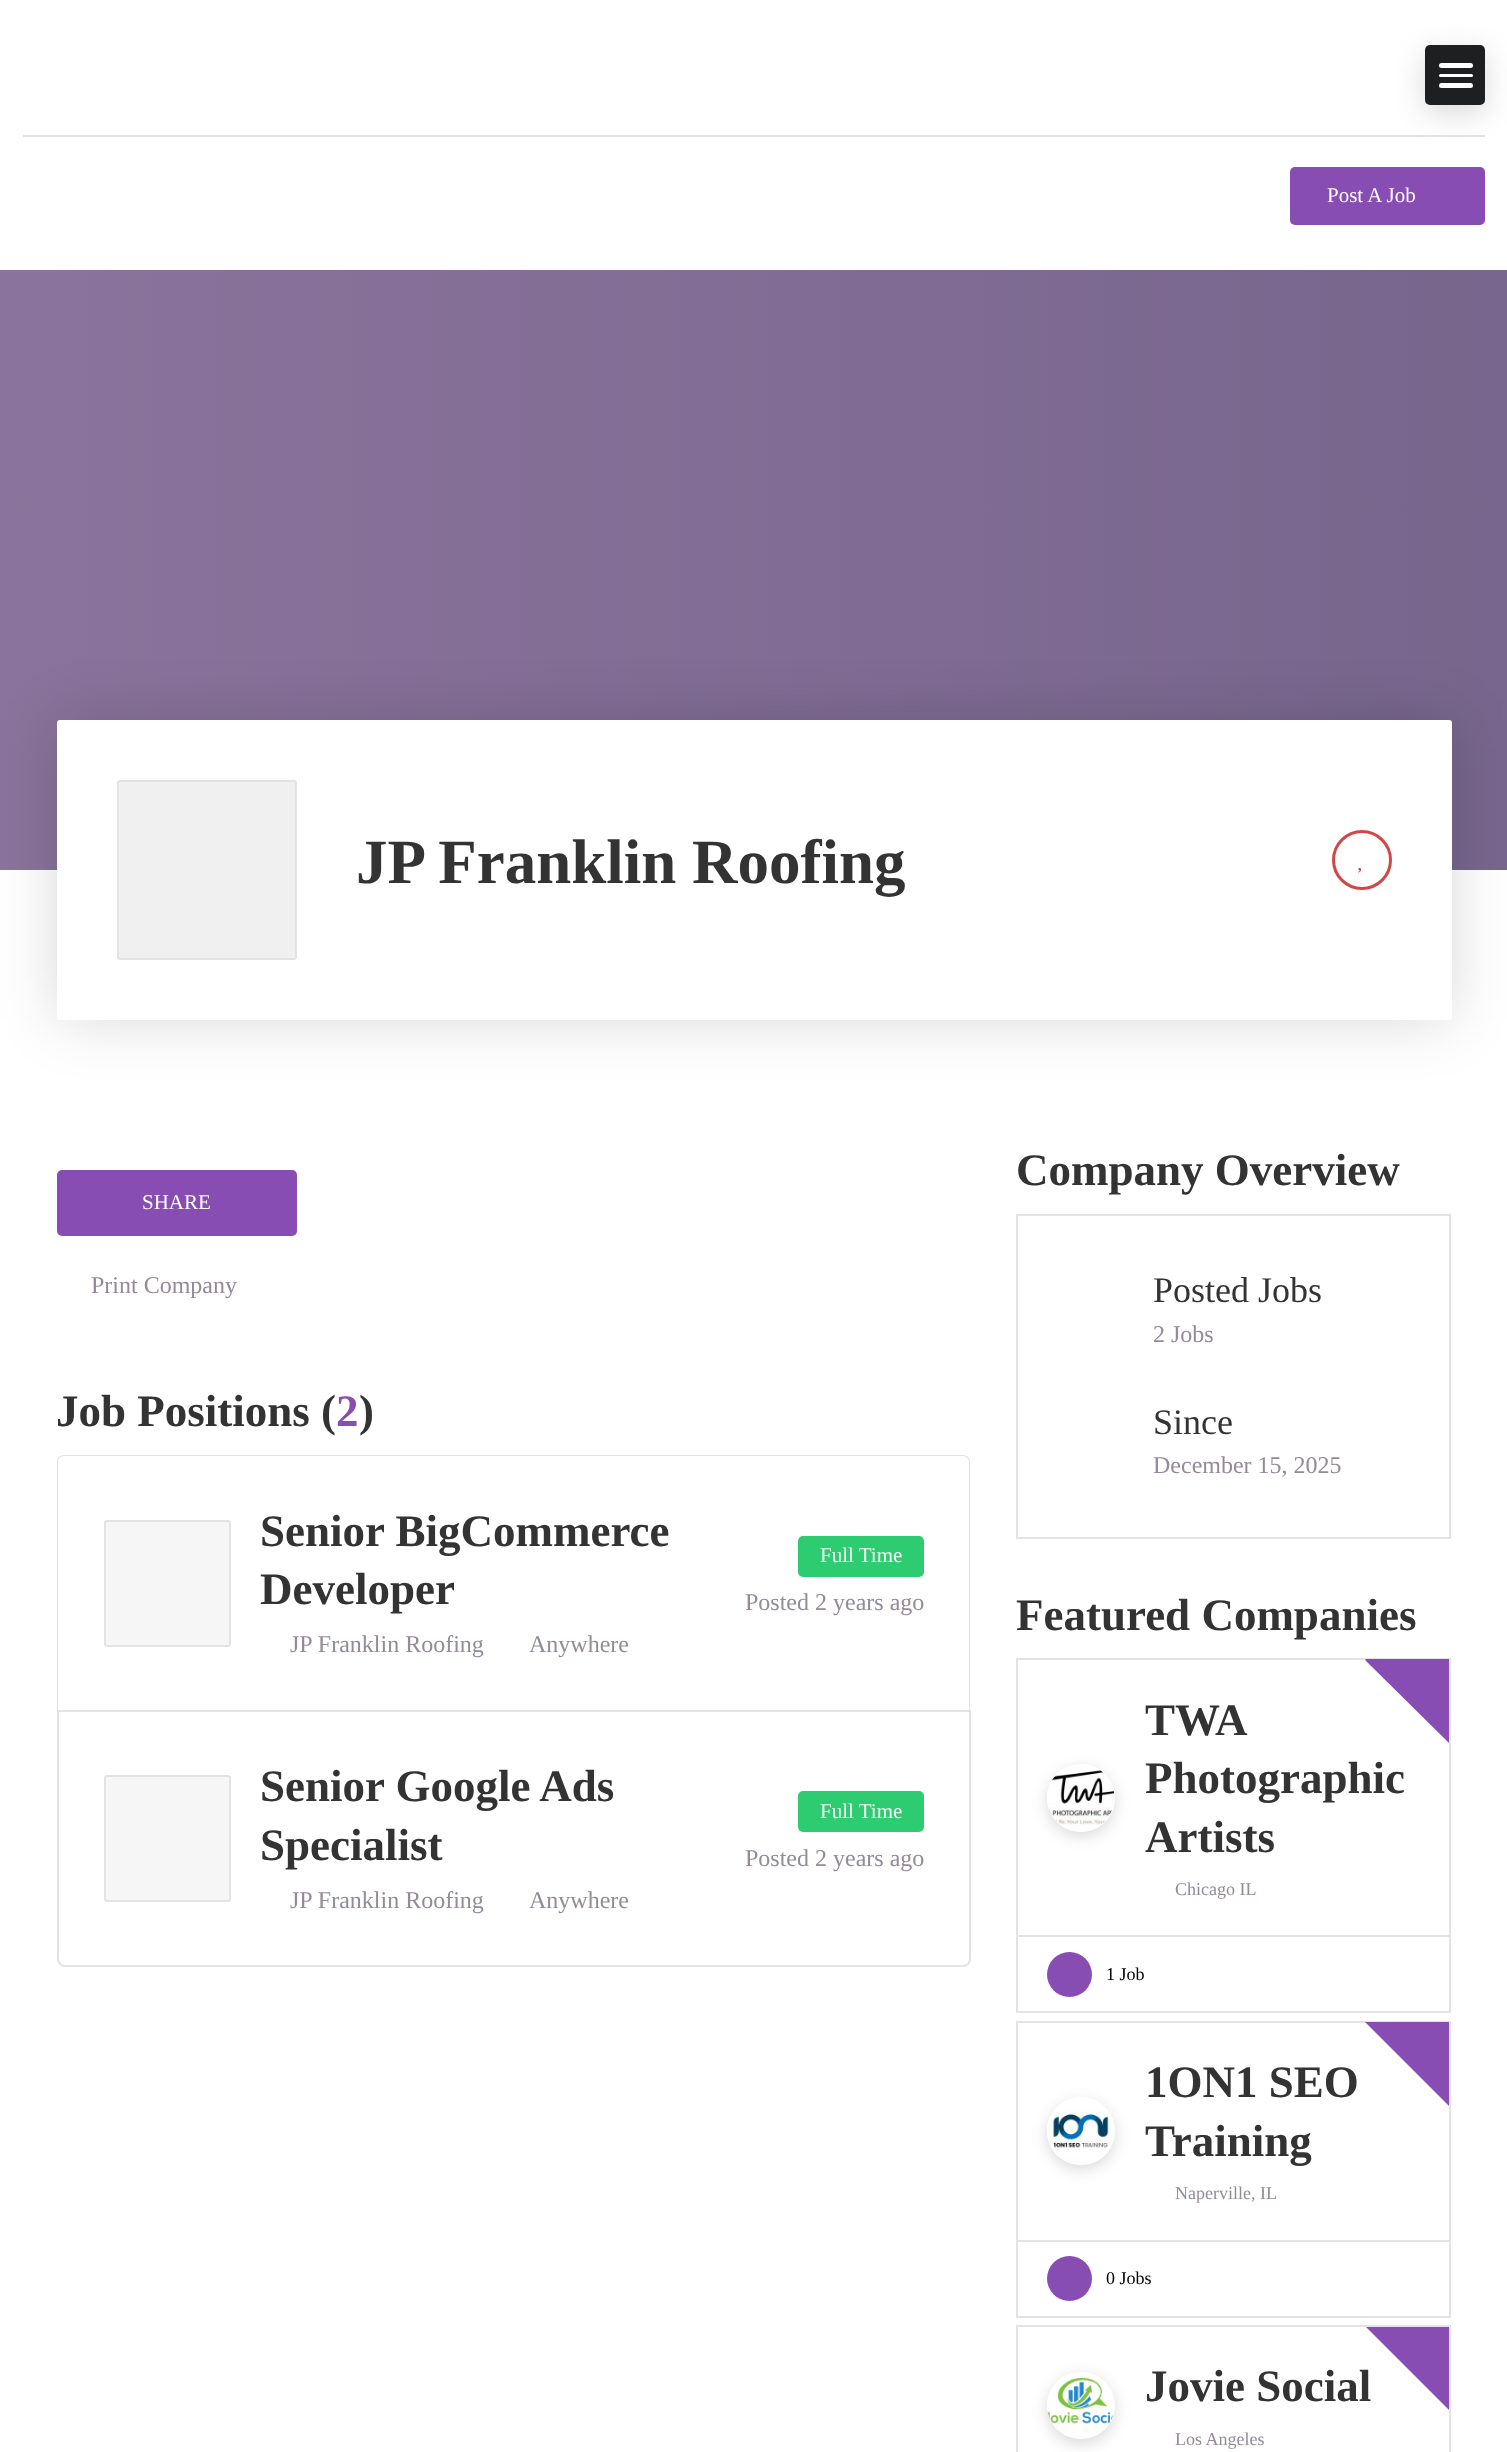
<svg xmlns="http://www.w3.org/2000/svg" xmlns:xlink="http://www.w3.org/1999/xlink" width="1507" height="2452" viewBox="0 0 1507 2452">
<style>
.cls-1{font:21px Liberation Serif;fill:#ffffff}
.cls-2{font:bold 63px Liberation Serif;fill:#333333}
.cls-3{font:24px Liberation Serif;fill:#948a99}
.cls-4{font:bold 45px Liberation Serif;fill:#333333}
.cls-5{font:bold 45px Liberation Serif;fill:#884db2}
.cls-6{font:21px Liberation Serif;fill:#f6f6f6}
.cls-7{font:36px Liberation Serif;fill:#333333}
.cls-8{font:18px Liberation Serif;fill:#948a99}
.cls-9{font:18px Liberation Serif;fill:#000000}
</style>
<defs>
<linearGradient id="g1" gradientUnits="userSpaceOnUse" x1="-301" y1="570" x2="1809" y2="570"><stop offset="0" stop-color="#8e769f"/><stop offset="1" stop-color="#74638a"/></linearGradient>
<clipPath id="clip1"><path d="M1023 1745H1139V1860H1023ZM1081 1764C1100 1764 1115 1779 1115 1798C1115 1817 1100 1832 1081 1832C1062 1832 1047 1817 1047 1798C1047 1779 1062 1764 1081 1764Z" clip-rule="evenodd"/></clipPath>
<clipPath id="clip2"><rect x="1017" y="1659" width="432" height="353"/></clipPath>
<clipPath id="clip3"><path d="M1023 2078H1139V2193H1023ZM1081 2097C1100 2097 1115 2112 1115 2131C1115 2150 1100 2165 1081 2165C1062 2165 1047 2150 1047 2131C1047 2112 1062 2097 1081 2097Z" clip-rule="evenodd"/></clipPath>
<clipPath id="clip4"><rect x="1017" y="2022" width="432" height="294"/></clipPath>
<clipPath id="clip5"><path d="M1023 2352H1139V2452H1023ZM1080.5 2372H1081.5C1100 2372 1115 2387 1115 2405.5C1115 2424 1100 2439 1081.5 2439H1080.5C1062 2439 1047 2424 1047 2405.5C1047 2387 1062 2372 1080.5 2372Z" clip-rule="evenodd"/></clipPath>
<clipPath id="clip6"><rect x="1017" y="2327" width="432" height="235"/></clipPath>
</defs>
<rect width="100%" height="100%" fill="#ffffff"/>
<rect fill="#e3e3e3" x="23" y="135" width="1462" height="2"/>
<rect fill="#000000" fill-opacity="0.15" filter="blur(15px)" x="1425" y="53" width="60" height="60" rx="5"/>
<rect fill="#1e1f21" x="1425" y="45" width="60" height="60" rx="5"/>
<rect fill="#ffffff" x="1439" y="83" width="34" height="5" rx="2.5"/>
<rect fill="#ffffff" x="1439" y="63" width="34" height="5" rx="2.5"/>
<rect fill="#ffffff" x="1439" y="74" width="34" height="3" rx="1.5"/>
<rect fill="#884db2" x="1290" y="167" width="195" height="58" rx="5"/>
<rect fill="url(#g1)" x="0" y="270" width="1507" height="600"/>
<rect fill="#000000" fill-opacity="0.15" filter="blur(30px)" x="57" y="720" width="1395" height="300" rx="3"/>
<rect fill="#ffffff" x="57" y="720" width="1395" height="300" rx="3"/>
<rect fill="#f0f0f0" stroke="#e3e3e3" stroke-width="2" x="118" y="781" width="178" height="178" rx="2"/>
<circle fill="none" stroke="#d04747" stroke-width="3" cx="1362" cy="860" r="28.5"/>
<image xlink:href="image0.png" x="1358" y="867" width="3" height="6"/>
<rect fill="#884db2" x="57" y="1170" width="240" height="66" rx="5"/>
<path fill="#e3e3e3" fill-rule="evenodd" d="M64 1455H963C967 1455 970 1458 970 1462V1710H57V1462C57 1458 60 1455 64 1455ZM64 1456H963C966 1456 969 1459 969 1462V1710H58V1462C58 1459 61 1456 64 1456Z"/>
<rect fill="#f6f6f6" stroke="#e3e3e3" stroke-width="2" x="105" y="1521" width="125" height="125" rx="2"/>
<rect fill="#2ecc71" x="798" y="1536" width="126" height="41" rx="5"/>
<path fill="none" stroke="#e3e3e3" stroke-width="2" d="M58 1711H970V1959C970 1963 967 1966 963 1966H65C61 1966 58 1963 58 1959Z"/>
<rect fill="#f6f6f6" stroke="#e3e3e3" stroke-width="2" x="105" y="1776" width="125" height="125" rx="2"/>
<rect fill="#2ecc71" x="798" y="1791" width="126" height="41" rx="5"/>
<rect fill="none" stroke="#e3e3e3" stroke-width="2" x="1017" y="1215" width="433" height="323"/>
<rect fill="none" stroke="#e3e3e3" stroke-width="2" x="1017" y="1659" width="433" height="353"/>
<rect fill="#e3e3e3" x="1017" y="1935" width="432" height="2"/>
<g clip-path="url(#clip1)">
<rect fill="#000000" fill-opacity="0.15" filter="blur(7.5px)" x="1047" y="1769" width="68" height="67" rx="33.5"/>
</g>
<image xlink:href="image1.png" x="1047" y="1770" width="67" height="61"/>
<g clip-path="url(#clip2)">
<path fill="#884db2" d="M1450 1575L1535 1660L1450 1744L1365 1660Z"/>
</g>
<circle fill="#884db2" cx="1069.5" cy="1974.5" r="22.5"/>
<rect fill="none" stroke="#e3e3e3" stroke-width="2" x="1017" y="2022" width="433" height="295"/>
<rect fill="#e3e3e3" x="1017" y="2240" width="432" height="2"/>
<g clip-path="url(#clip3)">
<rect fill="#000000" fill-opacity="0.15" filter="blur(7.5px)" x="1047" y="2102" width="68" height="67" rx="33.5"/>
</g>
<image xlink:href="image2.png" x="1047" y="2111" width="67" height="53"/>
<g clip-path="url(#clip4)">
<path fill="#884db2" d="M1450 1937L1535 2022L1450 2107L1365 2022Z"/>
</g>
<circle fill="#884db2" cx="1069.5" cy="2278.5" r="22.5"/>
<rect fill="none" stroke="#e3e3e3" stroke-width="2" x="1017" y="2326" width="433" height="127"/>
<g clip-path="url(#clip5)">
<rect fill="#000000" fill-opacity="0.15" filter="blur(7.5px)" x="1047" y="2376" width="68" height="68" rx="34"/>
</g>
<image xlink:href="image3.png" x="1047" y="2377" width="66" height="47"/>
<text class="cls-1" x="1327" y="202">Post A Job</text>
<text class="cls-2" x="356" y="883">JP Franklin Roofing</text>
<text class="cls-1" x="142" y="1209">SHARE</text>
<text class="cls-3" x="91" y="1293">Print Company</text>
<text class="cls-4" x="56" y="1426">Job Positions (</text>
<text class="cls-5" x="336" y="1426">2</text>
<text class="cls-4" x="359" y="1426">)</text>
<text class="cls-4"><tspan x="260" y="1546">Senior BigCommerce</tspan><tspan x="260" y="1604">Developer</tspan></text>
<text class="cls-3" x="290" y="1652">JP Franklin Roofing</text>
<text class="cls-3" x="529" y="1652">Anywhere</text>
<text class="cls-6" x="820" y="1562">Full Time</text>
<text class="cls-3" x="745" y="1610">Posted 2 years ago</text>
<text class="cls-4"><tspan x="260" y="1801">Senior Google Ads</tspan><tspan x="260" y="1860">Specialist</tspan></text>
<text class="cls-3" x="290" y="1908">JP Franklin Roofing</text>
<text class="cls-3" x="529" y="1908">Anywhere</text>
<text class="cls-6" x="820" y="1818">Full Time</text>
<text class="cls-3" x="745" y="1866">Posted 2 years ago</text>
<text class="cls-4" x="1016" y="1185">Company Overview</text>
<text class="cls-7" x="1153" y="1302">Posted Jobs</text>
<text class="cls-3" x="1153" y="1342">2 Jobs</text>
<text class="cls-7" x="1153" y="1434">Since</text>
<text class="cls-3" x="1153" y="1473">December 15, 2025</text>
<text class="cls-4" x="1016" y="1630">Featured Companies</text>
<text class="cls-4"><tspan x="1145" y="1735">TWA</tspan><tspan x="1145" y="1793">Photographic</tspan><tspan x="1145" y="1852">Artists</tspan></text>
<text class="cls-8" x="1175" y="1895">Chicago IL</text>
<text class="cls-9" x="1106" y="1980">1 Job</text>
<text class="cls-4"><tspan x="1145" y="2097">1ON1 SEO</tspan><tspan x="1145" y="2156">Training</tspan></text>
<text class="cls-8" x="1175" y="2199">Naperville, IL</text>
<text class="cls-9" x="1106" y="2284">0 Jobs</text>
<text class="cls-4" x="1145" y="2401">Jovie Social</text>
<text class="cls-8" x="1175" y="2445">Los Angeles</text>
<g clip-path="url(#clip6)">
<path fill="#884db2" d="M1450 2242L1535 2326L1450 2411L1365 2326Z"/>
</g>
</svg>
